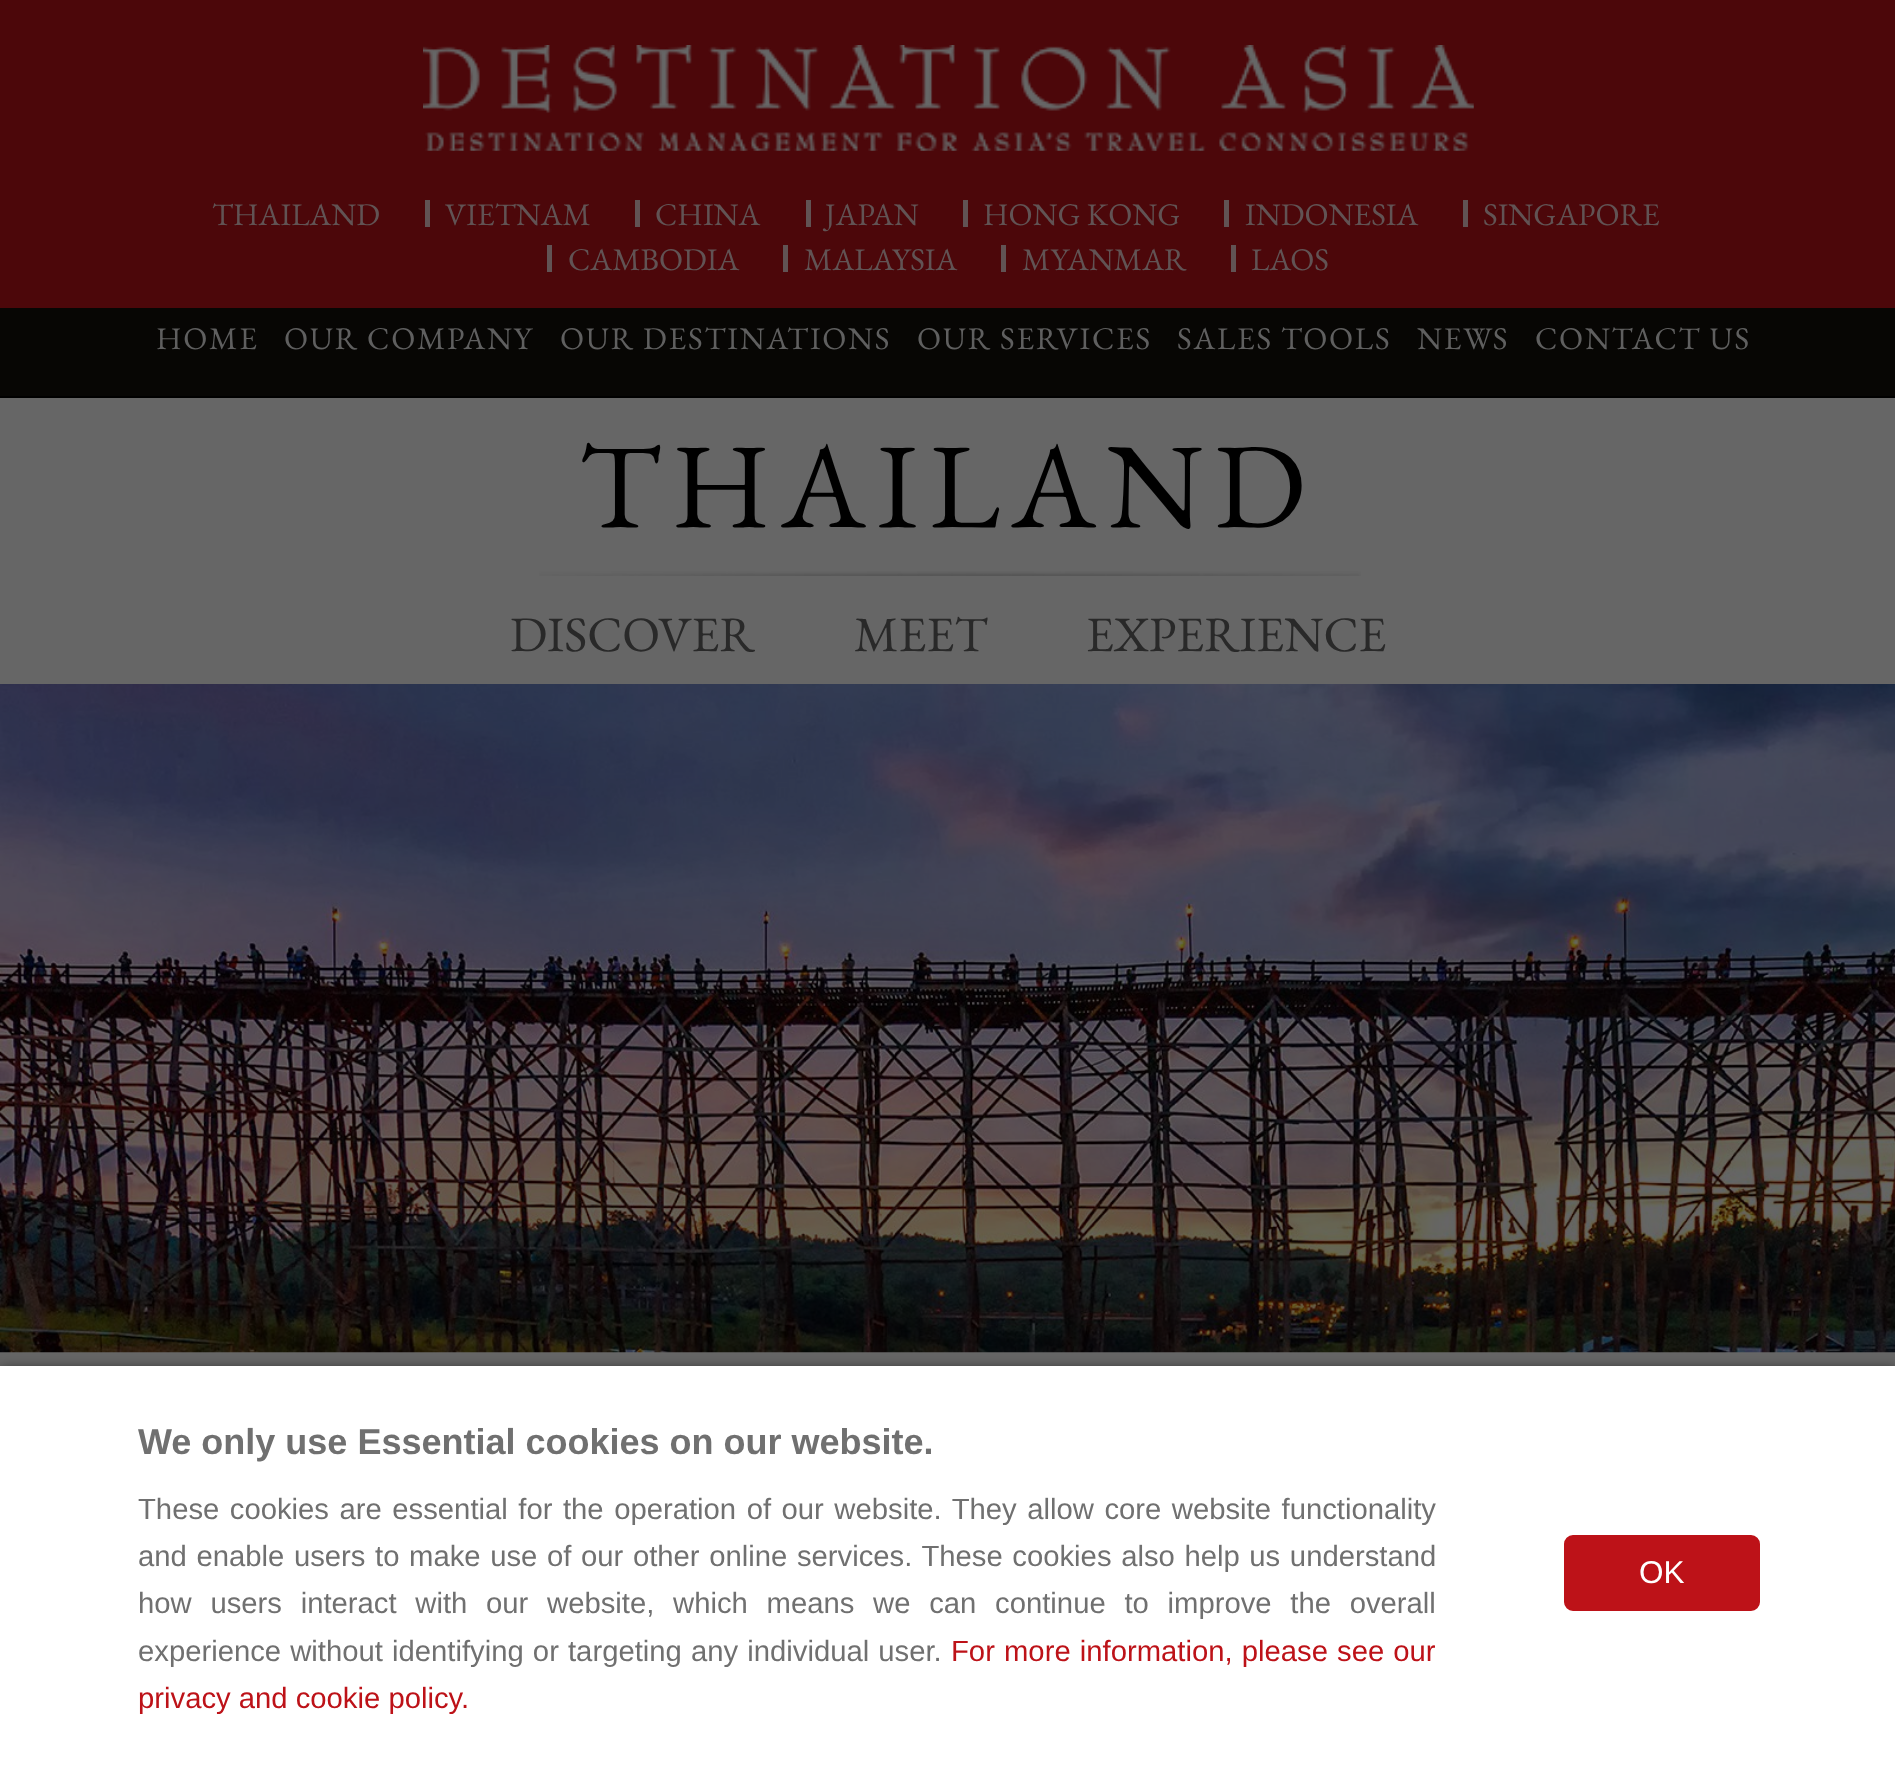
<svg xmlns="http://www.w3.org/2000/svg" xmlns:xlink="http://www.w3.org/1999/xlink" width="1895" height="1777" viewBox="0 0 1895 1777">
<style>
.cls-1{font:31.5px EB Garamond;fill:#615354}
.cls-2{font:31.5px EB Garamond;letter-spacing:1.75px;fill:#5f5f5f}
.cls-3{font:121.5px EB Garamond;letter-spacing:11.25px;fill:#000000}
.cls-4{font:49.5px EB Garamond;fill:#292929}
.cls-5{font:bold 36px Liberation Sans;fill:#707070}
.cls-6{font:29.25px Liberation Sans;fill:#707070}
.cls-7{font:29.25px Liberation Sans;fill:#bd1218}
.cls-8{font:31.5px Liberation Sans;fill:#ffffff}
</style>
<rect width="100%" height="100%" fill="#666666"/>
<rect fill="#4c070a" x="0" y="0" width="1895" height="308"/>
<image xlink:href="image0.png" x="423" y="45" width="1051" height="106"/>
<rect fill="#615354" x="425" y="200" width="5" height="27"/>
<rect fill="#615354" x="635" y="200" width="5" height="27"/>
<rect fill="#615354" x="806" y="200" width="5" height="27"/>
<rect fill="#615354" x="963" y="200" width="5" height="27"/>
<rect fill="#615354" x="1224" y="200" width="5" height="27"/>
<rect fill="#615354" x="1463" y="200" width="5" height="27"/>
<rect fill="#615354" x="547" y="245" width="5" height="27"/>
<rect fill="#615354" x="783" y="245" width="5" height="27"/>
<rect fill="#615354" x="1001" y="245" width="5" height="27"/>
<rect fill="#615354" x="1231" y="245" width="5" height="27"/>
<rect fill="#070604" x="0" y="308" width="1895" height="88"/>
<rect fill="#000000" x="0" y="396" width="1895" height="2"/>
<image xlink:href="image1.png" x="539" y="571" width="822" height="5"/>
<image xlink:href="image2.png" x="0" y="684" width="1895" height="669"/>
<rect fill="#000000" fill-opacity="0.75" filter="blur(7px)" x="0" y="1370" width="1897" height="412"/>
<rect fill="#ffffff" x="0" y="1366" width="1895" height="411"/>
<rect fill="#bd1218" stroke="#bd1218" stroke-width="2" x="1565" y="1536" width="194" height="74" rx="8"/>
<text class="cls-1" x="212" y="225">THAILAND</text>
<text class="cls-1" x="445" y="225">VIETNAM</text>
<text class="cls-1" x="655" y="225">CHINA</text>
<text class="cls-1" x="825" y="225">JAPAN</text>
<text class="cls-1" x="983" y="225">HONG KONG</text>
<text class="cls-1" x="1245" y="225">INDONESIA</text>
<text class="cls-1" x="1483" y="225">SINGAPORE</text>
<text class="cls-1" x="568" y="270">CAMBODIA</text>
<text class="cls-1" x="804" y="270">MALAYSIA</text>
<text class="cls-1" x="1022" y="270">MYANMAR</text>
<text class="cls-1" x="1251" y="270">LAOS</text>
<text class="cls-2" x="156" y="349">HOME</text>
<text class="cls-2" x="284" y="349">OUR COMPANY</text>
<text class="cls-2" x="560" y="349">OUR DESTINATIONS</text>
<text class="cls-2" x="917" y="349">OUR SERVICES</text>
<text class="cls-2" x="1177" y="349">SALES TOOLS</text>
<text class="cls-2" x="1417" y="349">NEWS</text>
<text class="cls-2" x="1535" y="349">CONTACT US</text>
<text class="cls-3" x="579" y="527">THAILAND</text>
<text class="cls-4" x="510" y="651">DISCOVER</text>
<text class="cls-4" x="854" y="651">MEET</text>
<text class="cls-4" x="1086" y="651">EXPERIENCE</text>
<text class="cls-5" x="138" y="1454">We only use Essential cookies on our website.</text>
<text class="cls-6"><tspan x="138" y="1519" word-spacing="2.4">These cookies are essential for the operation of our website. They allow core website functionality</tspan><tspan x="138" y="1566" word-spacing="1.5">and enable users to make use of our other online services. These cookies also help us understand</tspan><tspan x="138" y="1613" word-spacing="10.6">how users interact with our website, which means we can continue to improve the overall</tspan><tspan x="138" y="1661" word-spacing="1">experience without identifying or targeting any individual user.</tspan></text>
<text class="cls-7" x="951" y="1661" word-spacing="1">For more information, please see our</text>
<text class="cls-7" x="138" y="1708">privacy and cookie policy.</text>
<text class="cls-8" x="1639" y="1583">OK</text>
</svg>
